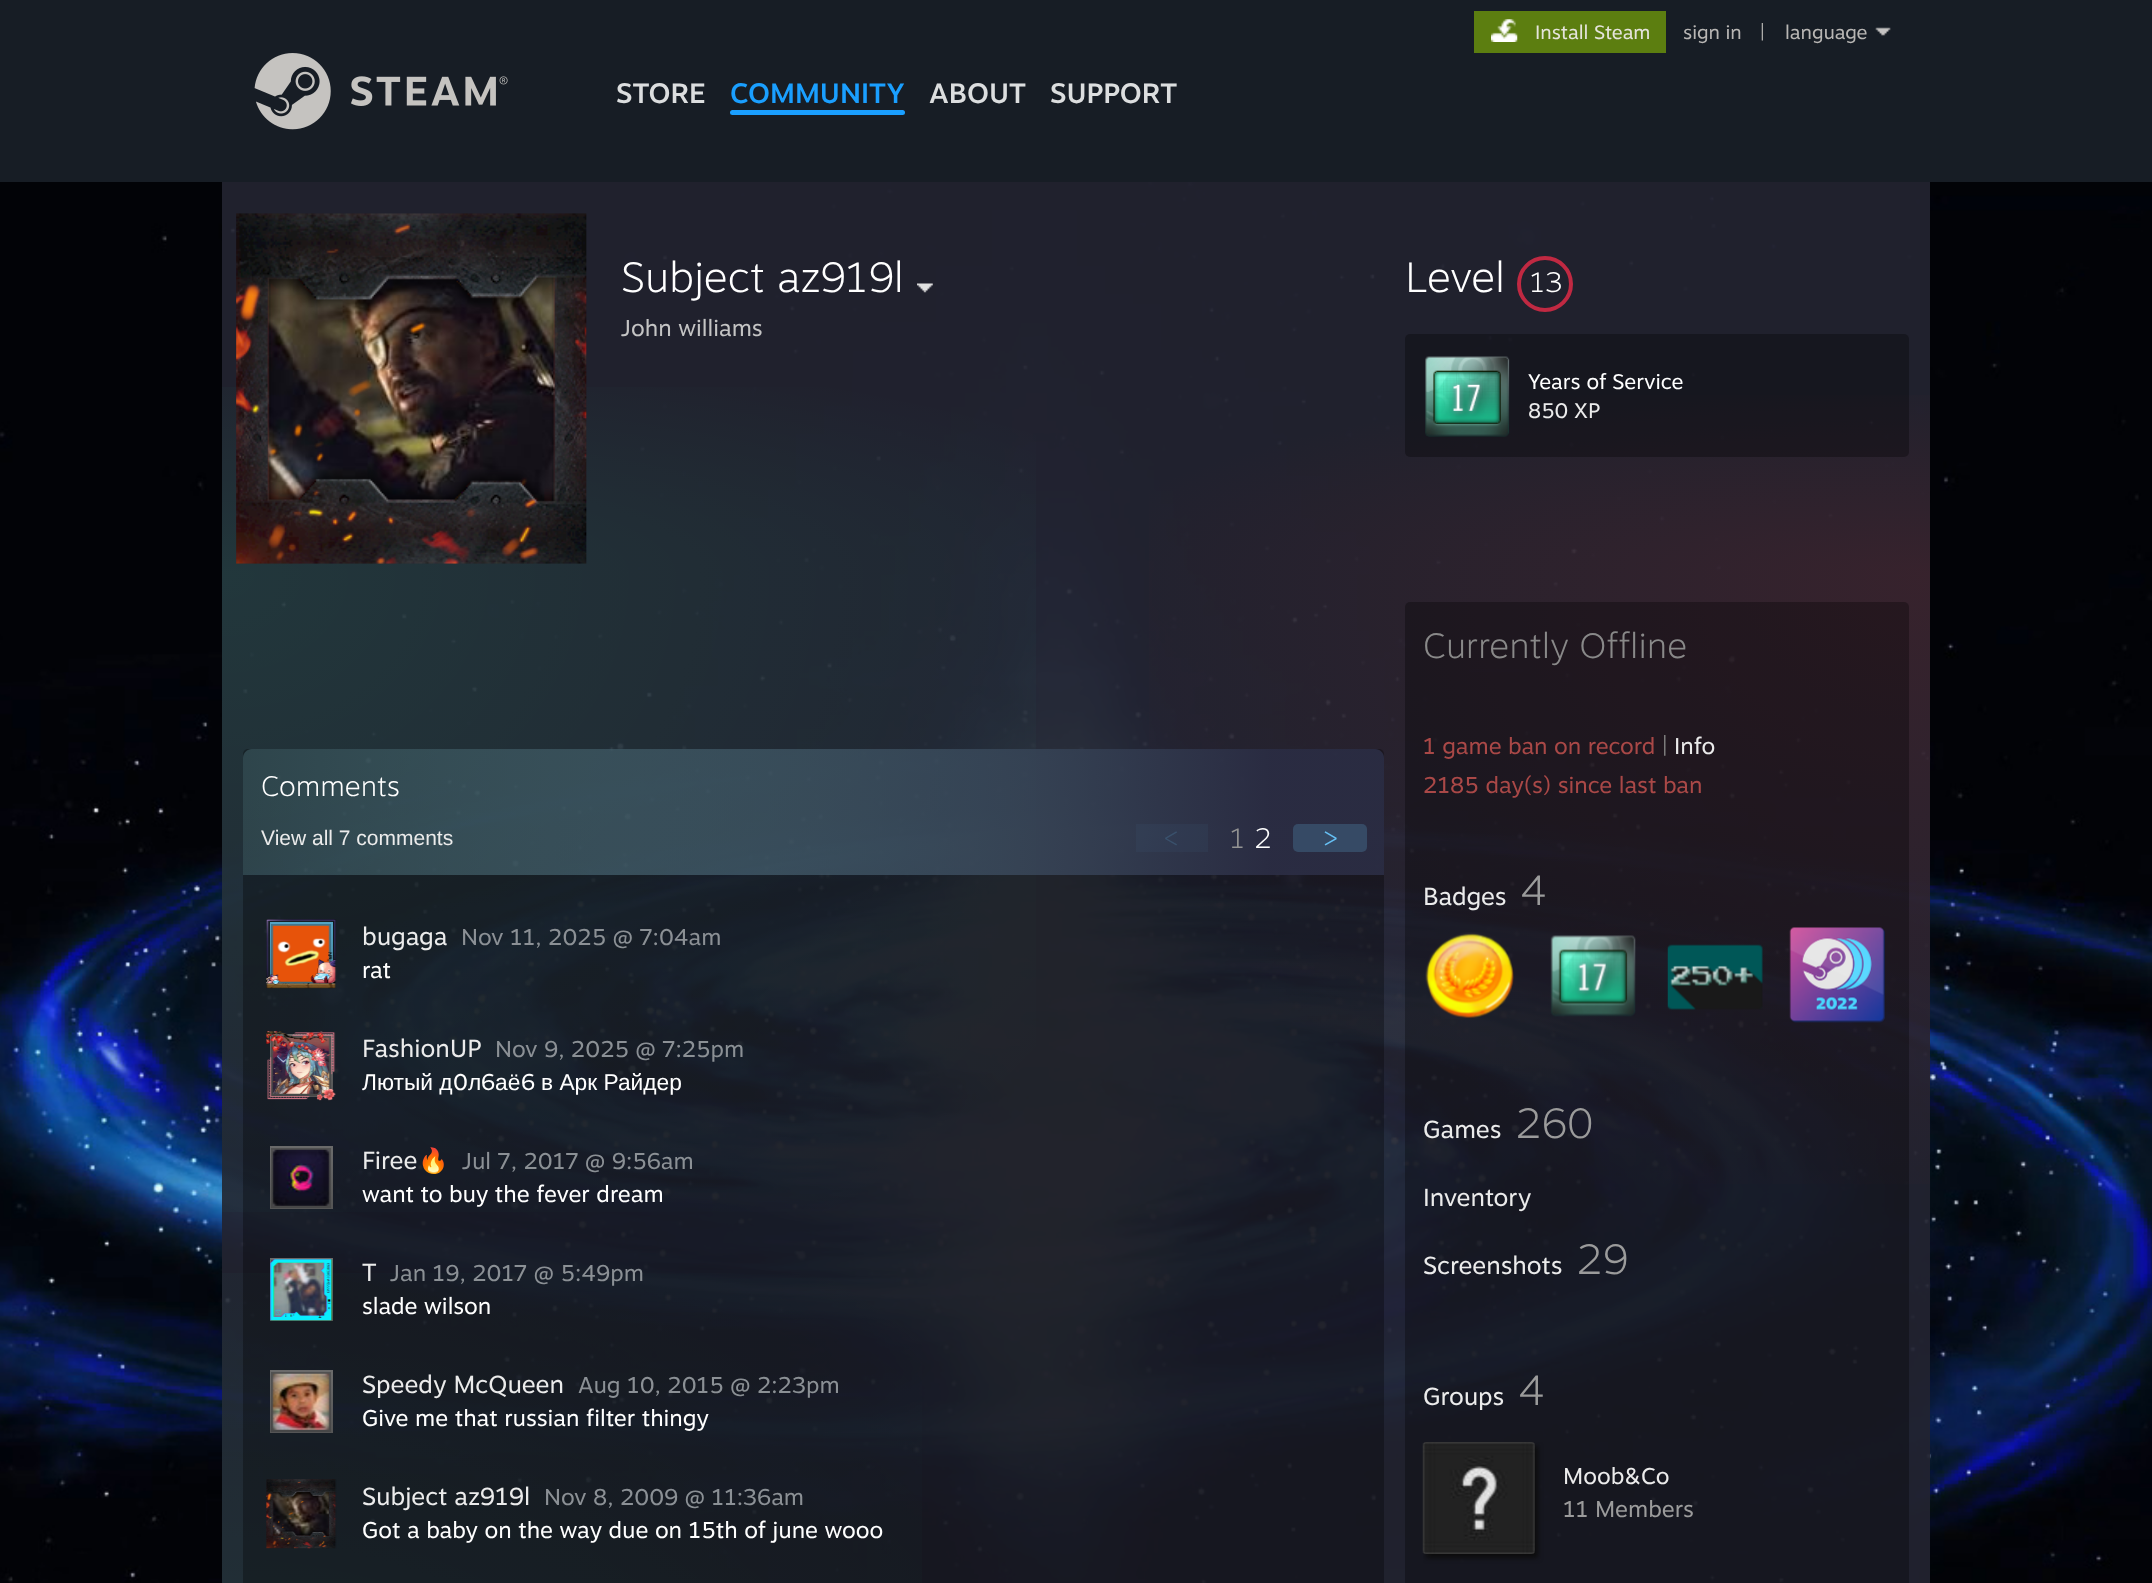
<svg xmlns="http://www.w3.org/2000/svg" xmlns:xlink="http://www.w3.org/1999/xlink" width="2152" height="1583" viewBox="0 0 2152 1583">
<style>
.cls-1{font:19.25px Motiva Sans;fill:#e5e4dc}
.cls-2{font:19.25px Motiva Sans;fill:#b8b6b4}
.cls-3{font:500 28px Motiva Sans;fill:#dcdedf}
.cls-4{font:500 28px Motiva Sans;fill:#1a9fff}
.cls-5{font:100 42px Motiva Sans;fill:#ffffff}
.cls-6{font:22.75px Motiva Sans;fill:#c4c4c4}
.cls-7{font:100 28px Motiva Sans;fill:#ffffff}
.cls-8{font:21px Motiva Sans;fill:#ffffff}
.cls-9{font:21px Motiva Sans;fill:#ebebeb}
.cls-10{font:21px Liberation Sans;fill:#ebebeb}
.cls-11{font:100 28px Motiva Sans;fill:#3a516c}
.cls-12{font:100 28px Motiva Sans;fill:#939393}
.cls-13{font:100 28px Motiva Sans;fill:#66c0f4}
.cls-14{font:24.5px Motiva Sans;fill:#ebebeb}
.cls-15{font:22.75px Motiva Sans;fill:#8b9095}
.cls-16{font:22.75px Motiva Sans;fill:#ffffff}
.cls-17{font:22.75px Liberation Sans;fill:#ffffff}
.cls-18{font:24.5px Noto Color Emoji;fill:#ebebeb}
.cls-19{font:100 35px Motiva Sans;fill:#898989}
.cls-20{font:22.75px Motiva Sans;fill:#a94847}
.cls-21{font:22.75px Motiva Sans;fill:#828282}
.cls-22{font:22.75px Motiva Sans;fill:#ebebeb}
.cls-23{font:100 42px Motiva Sans;fill:#9b9b9b}
.cls-24{font:22.75px Motiva Sans;fill:#9b9b9b}
</style>
<defs>
<radialGradient id="g1" gradientUnits="userSpaceOnUse" cx="0" cy="0" r="1" gradientTransform="matrix(2415 0 0 554 222 574)"><stop offset="0" stop-color="#32ffc1" stop-opacity="0.1"/><stop offset="0.43" stop-color="#32ffc1" stop-opacity="0"/></radialGradient>
<radialGradient id="g2" gradientUnits="userSpaceOnUse" cx="0" cy="0" r="1" gradientTransform="matrix(1708 0 0 392 1930 574)"><stop offset="0" stop-color="#6d262c" stop-opacity="0.3"/><stop offset="0.51" stop-color="#6d262c" stop-opacity="0"/></radialGradient>
<radialGradient id="g3" gradientUnits="userSpaceOnUse" cx="0" cy="0" r="1" gradientTransform="matrix(2415 0 0 1896 222 1915)"><stop offset="0" stop-color="#32ffc1" stop-opacity="0.1"/><stop offset="0.43" stop-color="#32ffc1" stop-opacity="0"/></radialGradient>
<radialGradient id="g4" gradientUnits="userSpaceOnUse" cx="0" cy="0" r="1" gradientTransform="matrix(2415 0 0 1896 222 574)"><stop offset="0" stop-color="#32ffc1" stop-opacity="0.1"/><stop offset="0.43" stop-color="#32ffc1" stop-opacity="0"/></radialGradient>
<radialGradient id="g5" gradientUnits="userSpaceOnUse" cx="0" cy="0" r="1" gradientTransform="matrix(1708 0 0 1341 1930 574)"><stop offset="0" stop-color="#6d262c" stop-opacity="0.3"/><stop offset="0.51" stop-color="#6d262c" stop-opacity="0"/></radialGradient>
<linearGradient id="g6" gradientUnits="userSpaceOnUse" x1="243" y1="812" x2="1384" y2="812"><stop offset="0" stop-color="#73adb8" stop-opacity="0.25"/><stop offset="0.9" stop-color="#2b2d44" stop-opacity="0.93"/></linearGradient>
<linearGradient id="g7" gradientUnits="userSpaceOnUse" x1="301" y1="922" x2="301" y2="985"><stop offset="0.05" stop-color="#53a4c4"/><stop offset="0.95" stop-color="#458097"/></linearGradient>
<linearGradient id="g8" gradientUnits="userSpaceOnUse" x1="301" y1="924" x2="301" y2="984"><stop offset="0.05" stop-color="#41778f"/><stop offset="0.95" stop-color="#3d697b"/></linearGradient>
<linearGradient id="g9" gradientUnits="userSpaceOnUse" x1="301" y1="1034" x2="301" y2="1097"><stop offset="0.05" stop-color="#6a6a6a"/><stop offset="0.95" stop-color="#555555"/></linearGradient>
<linearGradient id="g10" gradientUnits="userSpaceOnUse" x1="301" y1="1036" x2="301" y2="1096"><stop offset="0.05" stop-color="#515151"/><stop offset="0.95" stop-color="#474747"/></linearGradient>
<linearGradient id="g11" gradientUnits="userSpaceOnUse" x1="301" y1="1146" x2="301" y2="1209"><stop offset="0.05" stop-color="#6a6a6a"/><stop offset="0.95" stop-color="#555555"/></linearGradient>
<linearGradient id="g12" gradientUnits="userSpaceOnUse" x1="301" y1="1148" x2="301" y2="1208"><stop offset="0.05" stop-color="#515151"/><stop offset="0.95" stop-color="#474747"/></linearGradient>
<linearGradient id="g13" gradientUnits="userSpaceOnUse" x1="301" y1="1258" x2="301" y2="1321"><stop offset="0.05" stop-color="#6a6a6a"/><stop offset="0.95" stop-color="#555555"/></linearGradient>
<linearGradient id="g14" gradientUnits="userSpaceOnUse" x1="301" y1="1260" x2="301" y2="1320"><stop offset="0.05" stop-color="#515151"/><stop offset="0.95" stop-color="#474747"/></linearGradient>
<linearGradient id="g15" gradientUnits="userSpaceOnUse" x1="301" y1="1370" x2="301" y2="1433"><stop offset="0.05" stop-color="#6a6a6a"/><stop offset="0.95" stop-color="#555555"/></linearGradient>
<linearGradient id="g16" gradientUnits="userSpaceOnUse" x1="301" y1="1372" x2="301" y2="1432"><stop offset="0.05" stop-color="#515151"/><stop offset="0.95" stop-color="#474747"/></linearGradient>
<clipPath id="clip1"><rect x="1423" y="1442" width="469" height="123"/></clipPath>
</defs>
<rect width="100%" height="100%" fill="#171d25"/>
<rect fill="#5c7e10" x="1474" y="11" width="192" height="42"/>
<image xlink:href="image0.png" x="1491" y="19" width="27" height="23"/>
<image xlink:href="image1.png" x="1875" y="27" width="16" height="9"/>
<image xlink:href="image2.png" x="254" y="53" width="254" height="77"/>
<rect fill="#1a9fff" x="730" y="110" width="175" height="5" rx="2.5"/>
<image xlink:href="image3.png" x="0" y="182" width="2152" height="1401"/>
<rect fill="#222330" fill-opacity="0.93" x="222" y="182" width="1708" height="392"/>
<rect fill="url(#g1)" x="222" y="387" width="814" height="187"/>
<rect fill="url(#g2)" x="1149" y="395" width="781" height="179"/>
<image xlink:href="image5.png" x="267" y="275" width="288" height="228"/>
<image xlink:href="image4.png" x="236" y="213" width="351" height="351"/>
<image xlink:href="image6.png" x="917" y="283" width="16" height="10"/>
<circle fill="none" stroke="#c02942" stroke-width="4" cx="1545" cy="284" r="26"/>
<rect fill="#000000" fill-opacity="0.3" x="1405" y="334" width="504" height="123" rx="5"/>
<image xlink:href="image7.png" x="1425" y="356" width="85" height="81"/>
<rect fill="#222330" fill-opacity="0.93" x="222" y="574" width="1708" height="1009"/>
<rect fill="url(#g3)" x="222" y="1273" width="700" height="310"/>
<rect fill="url(#g4)" x="222" y="574" width="814" height="638"/>
<rect fill="url(#g5)" x="1149" y="574" width="781" height="610"/>
<rect fill="#000000" fill-opacity="0.3" x="243" y="749" width="1141" height="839" rx="5"/>
<path fill="url(#g6)" d="M252 749H1375C1380 749 1384 753 1384 758V875H243V758C243 753 247 749 252 749Z"/>
<rect fill="#67c1f5" fill-opacity="0.04" x="1136" y="824" width="72" height="28"/>
<rect fill="#364a65" x="1293" y="824" width="74" height="28" rx="5"/>
<rect fill="url(#g7)" x="270" y="922" width="63" height="62"/>
<rect fill="url(#g8)" x="271" y="924" width="60" height="60"/>
<image xlink:href="image9.png" x="272" y="925" width="58" height="57"/>
<image xlink:href="image8.png" x="266" y="919" width="71" height="70"/>
<rect fill="url(#g9)" x="270" y="1034" width="63" height="63"/>
<rect fill="url(#g10)" x="271" y="1036" width="60" height="60"/>
<image xlink:href="image11.png" x="272" y="1037" width="58" height="57"/>
<image xlink:href="image10.png" x="266" y="1031" width="70" height="70"/>
<rect fill="url(#g11)" x="270" y="1146" width="63" height="63"/>
<rect fill="url(#g12)" x="271" y="1148" width="60" height="60"/>
<image xlink:href="image12.png" x="272" y="1149" width="58" height="57"/>
<rect fill="url(#g13)" x="270" y="1258" width="63" height="63"/>
<rect fill="url(#g14)" x="271" y="1260" width="11" height="60"/>
<image xlink:href="image14.png" x="272" y="1261" width="56" height="57"/>
<image xlink:href="image13.png" x="270" y="1259" width="63" height="62"/>
<rect fill="url(#g15)" x="270" y="1370" width="63" height="63"/>
<rect fill="url(#g16)" x="271" y="1372" width="60" height="60"/>
<image xlink:href="image15.png" x="272" y="1373" width="58" height="57"/>
<image xlink:href="image17.png" x="272" y="1491" width="58" height="46"/>
<image xlink:href="image16.png" x="266" y="1479" width="71" height="70"/>
<rect fill="#000000" fill-opacity="0.3" x="1405" y="602" width="504" height="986" rx="5"/>
<image xlink:href="image18.png" x="1425" y="932" width="89" height="87"/>
<image xlink:href="image19.png" x="1550" y="935" width="86" height="82"/>
<image xlink:href="image20.png" x="1667" y="944" width="96" height="66"/>
<image xlink:href="image21.png" x="1789" y="927" width="96" height="96"/>
<g clip-path="url(#clip1)">
<rect fill="#0c0c0c" filter="blur(2.5px)" x="1426" y="1446" width="112" height="112"/>
</g>
<image xlink:href="image22.png" x="1422" y="1442" width="113" height="112"/>
<text class="cls-1" x="1535" y="39">Install Steam</text>
<text class="cls-2" x="1683" y="39">sign in</text>
<text class="cls-2" x="1760" y="39">|</text>
<text class="cls-2" x="1785" y="39">language</text>
<text class="cls-3" x="616" y="103">STORE</text>
<text class="cls-4" x="730" y="103">COMMUNITY</text>
<text class="cls-3" x="929" y="103">ABOUT</text>
<text class="cls-3" x="1050" y="103">SUPPORT</text>
<text class="cls-5" x="621" y="292">Subject az919l</text>
<text class="cls-6" x="621" y="336">John williams</text>
<text class="cls-5" x="1405" y="292">Level</text>
<text class="cls-7" x="1530" y="292">13</text>
<text class="cls-8" x="1528" y="389">Years of Service</text>
<text class="cls-9" x="1528" y="418">850 XP</text>
<text class="cls-7" x="261" y="796">Comments</text>
<text class="cls-10" x="261" y="845">View all 7 comments</text>
<text class="cls-11" x="1163" y="848">&lt;</text>
<text class="cls-12" x="1230" y="848">1</text>
<text class="cls-7" x="1254" y="848">2</text>
<text class="cls-13" x="1322" y="848">&gt;</text>
<text class="cls-14" x="362" y="945">bugaga</text>
<text class="cls-15" x="461" y="945">Nov 11, 2025 @ 7:04am</text>
<text class="cls-16" x="362" y="978">rat</text>
<text class="cls-14" x="362" y="1057">FashionUP</text>
<text class="cls-15" x="495" y="1057">Nov 9, 2025 @ 7:25pm</text>
<text class="cls-17" x="362" y="1090">Лютый д</text>
<text class="cls-16" x="453" y="1090">0</text>
<text class="cls-17" x="468" y="1090">л</text>
<text class="cls-16" x="481" y="1090">6</text>
<text class="cls-17" x="495" y="1090">аё</text>
<text class="cls-16" x="521" y="1090">6</text>
<text class="cls-17" x="541" y="1090">в Арк Райдер</text>
<text class="cls-14" x="362" y="1169">Firee</text>
<text class="cls-18" x="418" y="1169">🔥</text>
<text class="cls-15" x="462" y="1169">Jul 7, 2017 @ 9:56am</text>
<text class="cls-16" x="362" y="1202">want to buy the fever dream</text>
<text class="cls-14" x="362" y="1281">T</text>
<text class="cls-15" x="390" y="1281">Jan 19, 2017 @ 5:49pm</text>
<text class="cls-16" x="362" y="1314">slade wilson</text>
<text class="cls-14" x="362" y="1393">Speedy McQueen</text>
<text class="cls-15" x="578" y="1393">Aug 10, 2015 @ 2:23pm</text>
<text class="cls-16" x="362" y="1426">Give me that russian filter thingy</text>
<text class="cls-14" x="362" y="1505">Subject az919l</text>
<text class="cls-15" x="544" y="1505">Nov 8, 2009 @ 11:36am</text>
<text class="cls-16" x="362" y="1538">Got a baby on the way due on 15th of june wooo</text>
<text class="cls-19" x="1423" y="658">Currently Offline</text>
<text class="cls-20" x="1423" y="754">1 game ban on record</text>
<text class="cls-21" x="1662" y="754">|</text>
<text class="cls-22" x="1674" y="754">Info</text>
<text class="cls-20" x="1423" y="793">2185 day(s) since last ban</text>
<text class="cls-14" x="1423" y="905">Badges</text>
<text class="cls-23" x="1520" y="905">4</text>
<text class="cls-14" x="1423" y="1138">Games</text>
<text class="cls-23" x="1515" y="1138">260</text>
<text class="cls-14" x="1423" y="1206">Inventory</text>
<text class="cls-14" x="1423" y="1274">Screenshots</text>
<text class="cls-23" x="1576" y="1274">29</text>
<text class="cls-14" x="1423" y="1405">Groups</text>
<text class="cls-23" x="1518" y="1405">4</text>
<text class="cls-22" x="1563" y="1484">Moob&amp;Co</text>
<text class="cls-24" x="1563" y="1517">11 Members</text>
</svg>
